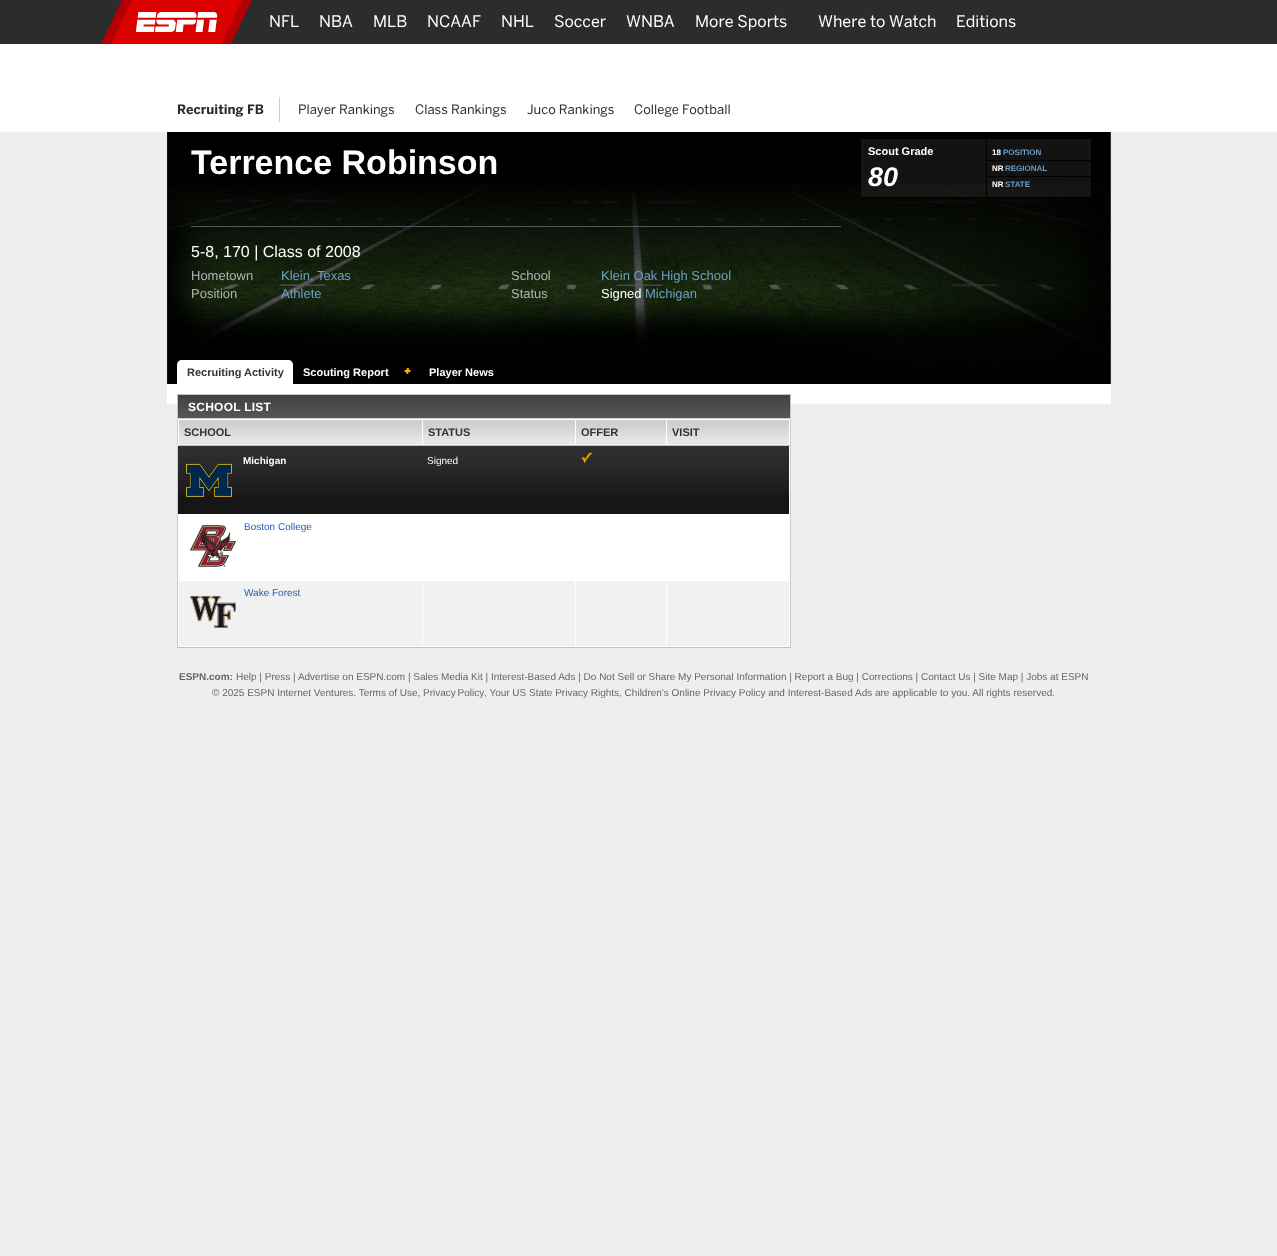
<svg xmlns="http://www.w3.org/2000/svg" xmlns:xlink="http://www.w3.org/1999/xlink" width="1277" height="1256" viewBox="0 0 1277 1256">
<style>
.cls-1{font:16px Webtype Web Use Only;fill:#ffffff}
.cls-2{font:bold 13px Webtype Web Use Only;fill:#2b2c2d}
.cls-3{font:13px Webtype Web Use Only;fill:#2b2c2d}
.cls-4{font:bold 11px Liberation Sans;fill:#ffffff}
.cls-5{font:italic bold 27px Liberation Sans;fill:#ffffff}
.cls-6{font:bold 8px Liberation Sans;fill:#ffffff}
.cls-7{font:bold 8px Liberation Sans;fill:#6c9ec6}
.cls-8{font:16px Liberation Sans;fill:#ffffff}
.cls-9{font:13px Liberation Sans;fill:#b2b2b2}
.cls-10{font:13px Liberation Sans;fill:#6c9ec6}
.cls-11{font:13px Liberation Sans;fill:#ffffff}
.cls-12{font:bold 34px Liberation Sans;fill:#ffffff}
.cls-13{font:bold 11px Liberation Sans;fill:#333333}
.cls-14{font:bold 12px Liberation Sans;letter-spacing:0.25px;fill:#ffffff}
.cls-15{font:bold 10px Liberation Sans;fill:#ffffff}
.cls-16{font:10px Liberation Sans;fill:#ffffff}
.cls-17{font:10px Liberation Sans;fill:#225db7}
.cls-18{font:bold 10px Liberation Sans;fill:#666666}
.cls-19{font:10px Liberation Sans;fill:#666666}
</style>
<rect width="100%" height="100%" fill="#edeef0"/>
<rect fill="#ffffff" x="0" y="44" width="1277" height="88"/>
<rect fill="#2b2c2d" x="0" y="0" width="1277" height="44"/>
<path fill="#b40000" d="M122 0H252L231 44H101Z"/>
<path fill="#dd0000" d="M132 0H242L221 44H111Z"/>
<image xlink:href="image0.png" x="136" y="12" width="82" height="20"/>
<rect fill="#cbccce" x="279" y="97" width="1" height="25"/>
<image xlink:href="image1.png" x="167" y="132" width="944" height="252"/>
<rect fill="#bababa" fill-opacity="0.1" x="861" y="139" width="230" height="58"/>
<rect fill="#000000" x="860" y="197" width="219" height="1"/>
<rect fill="#000000" x="986" y="160" width="105" height="1"/>
<rect fill="#000000" x="986" y="176" width="105" height="1"/>
<rect fill="#000000" x="986" y="139" width="1" height="58"/>
<rect fill="#565656" x="191" y="226" width="650" height="1"/>
<path fill="#ffffff" d="M182 360H288C291 360 293 362 293 365V384H177V365C177 362 179 360 182 360Z"/>
<image xlink:href="image2.png" x="404" y="368" width="7" height="6"/>
<rect fill="#ffffff" x="167" y="384" width="944" height="20"/>
<image xlink:href="image3.png" x="178" y="395" width="612" height="23"/>
<rect fill="#c2c2c2" x="177" y="394" width="614" height="1"/>
<rect fill="#c2c2c2" x="790" y="394" width="1" height="24"/>
<rect fill="#c2c2c2" x="177" y="394" width="1" height="24"/>
<rect fill="#ffffff" x="178" y="419" width="612" height="227"/>
<rect fill="#cccccc" x="177" y="418" width="614" height="1"/>
<rect fill="#cccccc" x="790" y="418" width="1" height="229"/>
<rect fill="#cccccc" x="177" y="418" width="1" height="229"/>
<rect fill="#eeeeee" x="179" y="444" width="243" height="1"/>
<image xlink:href="image4.png" x="179" y="420" width="243" height="24"/>
<rect fill="#c2c2c2" x="666" y="445" width="124" height="1"/>
<rect fill="#ffffff" x="666" y="445" width="1" height="1"/>
<rect fill="#c2c2c2" x="575" y="445" width="92" height="1"/>
<rect fill="#ffffff" x="575" y="445" width="1" height="1"/>
<rect fill="#c2c2c2" x="422" y="445" width="154" height="1"/>
<rect fill="#ffffff" x="422" y="445" width="1" height="1"/>
<rect fill="#c2c2c2" x="178" y="445" width="245" height="1"/>
<rect fill="#ffffff" x="178" y="445" width="1" height="1"/>
<rect fill="#eeeeee" x="423" y="444" width="152" height="1"/>
<image xlink:href="image5.png" x="423" y="420" width="152" height="24"/>
<rect fill="#eeeeee" x="576" y="444" width="90" height="1"/>
<image xlink:href="image6.png" x="576" y="420" width="90" height="24"/>
<rect fill="#eeeeee" x="667" y="444" width="122" height="1"/>
<image xlink:href="image7.png" x="667" y="420" width="122" height="24"/>
<rect fill="#161616" x="178" y="495" width="611" height="19"/>
<image xlink:href="image8.png" x="178" y="446" width="244" height="49"/>
<image xlink:href="image9.png" x="186" y="463" width="46" height="34"/>
<image xlink:href="image10.png" x="422" y="446" width="153" height="49"/>
<image xlink:href="image11.png" x="575" y="446" width="92" height="49"/>
<image xlink:href="image12.png" x="581" y="452" width="12" height="12"/>
<image xlink:href="image13.png" x="667" y="446" width="122" height="49"/>
<image xlink:href="image14.png" x="190" y="525" width="46" height="42"/>
<rect fill="#f1f1f1" x="667" y="581" width="122" height="65"/>
<rect fill="#ffffff" x="178" y="646" width="612" height="1"/>
<rect fill="#f1f1f1" x="179" y="581" width="243" height="65"/>
<image xlink:href="image15.png" x="190" y="595" width="46" height="34"/>
<rect fill="#f1f1f1" x="423" y="581" width="152" height="65"/>
<rect fill="#f1f1f1" x="576" y="581" width="90" height="65"/>
<rect fill="#c2c2c2" x="177" y="647" width="614" height="1"/>
<text class="cls-1" x="269" y="27">NFL</text>
<text class="cls-1" x="319" y="27">NBA</text>
<text class="cls-1" x="373" y="27">MLB</text>
<text class="cls-1" x="427" y="27">NCAAF</text>
<text class="cls-1" x="501" y="27">NHL</text>
<text class="cls-1" x="554" y="27">Soccer</text>
<text class="cls-1" x="626" y="27">WNBA</text>
<text class="cls-1" x="695" y="27">More Sports</text>
<text class="cls-1" x="818" y="27">Where to Watch</text>
<text class="cls-1" x="956" y="27">Editions</text>
<text class="cls-2" x="177" y="114">Recruiting FB</text>
<text class="cls-3" x="298" y="114">Player Rankings</text>
<text class="cls-3" x="415" y="114">Class Rankings</text>
<text class="cls-3" x="527" y="114">Juco Rankings</text>
<text class="cls-3" x="634" y="114">College Football</text>
<text class="cls-4" x="868" y="155">Scout Grade</text>
<text class="cls-5" x="868" y="186">80</text>
<text class="cls-6" x="992" y="155">18</text>
<text class="cls-7" x="1003" y="155">POSITION</text>
<text class="cls-6" x="992" y="171">NR</text>
<text class="cls-7" x="1005" y="171">REGIONAL</text>
<text class="cls-6" x="992" y="187">NR</text>
<text class="cls-7" x="1005" y="187">STATE</text>
<text class="cls-8" x="191" y="257">5-8, 170 | Class of 2008</text>
<text class="cls-9" x="191" y="280">Hometown</text>
<text class="cls-10" x="281" y="280">Klein, Texas</text>
<text class="cls-9" x="511" y="280">School</text>
<text class="cls-10" x="601" y="280">Klein Oak High School</text>
<text class="cls-9" x="191" y="298">Position</text>
<text class="cls-10" x="281" y="298">Athlete</text>
<text class="cls-9" x="511" y="298">Status</text>
<text class="cls-11" x="601" y="298">Signed</text>
<text class="cls-10" x="645" y="298">Michigan</text>
<text class="cls-12" x="191" y="174">Terrence Robinson</text>
<text class="cls-13" x="187" y="376">Recruiting Activity</text>
<text class="cls-4" x="303" y="376">Scouting Report</text>
<text class="cls-4" x="429" y="376">Player News</text>
<text class="cls-14" x="188" y="411">SCHOOL LIST</text>
<text class="cls-13" x="184" y="436">SCHOOL</text>
<text class="cls-13" x="428" y="436">STATUS</text>
<text class="cls-13" x="581" y="436">OFFER</text>
<text class="cls-13" x="672" y="436">VISIT</text>
<text class="cls-15" x="243" y="464">Michigan</text>
<text class="cls-16" x="427" y="464">Signed</text>
<text class="cls-17" x="244" y="530">Boston College</text>
<text class="cls-17" x="244" y="596">Wake Forest</text>
<text class="cls-18" x="179" y="680">ESPN.com:</text>
<text class="cls-19" x="236" y="680">Help | Press | Advertise on ESPN.com | Sales Media Kit | Interest-Based Ads | Do Not Sell or Share My Personal Information | Report a Bug | Corrections | Contact Us | Site Map | Jobs at ESPN</text>
<text class="cls-19" x="212" y="696">© 2025 ESPN Internet Ventures. Terms of Use,</text>
<text class="cls-19" x="423" y="696" word-spacing="-1">Privacy Policy</text>
<text class="cls-19" x="484" y="696">, Your US State Privacy Rights, Children's Online Privacy Policy and Interest-Based Ads are applicable to you. All rights reserved.</text>
</svg>
